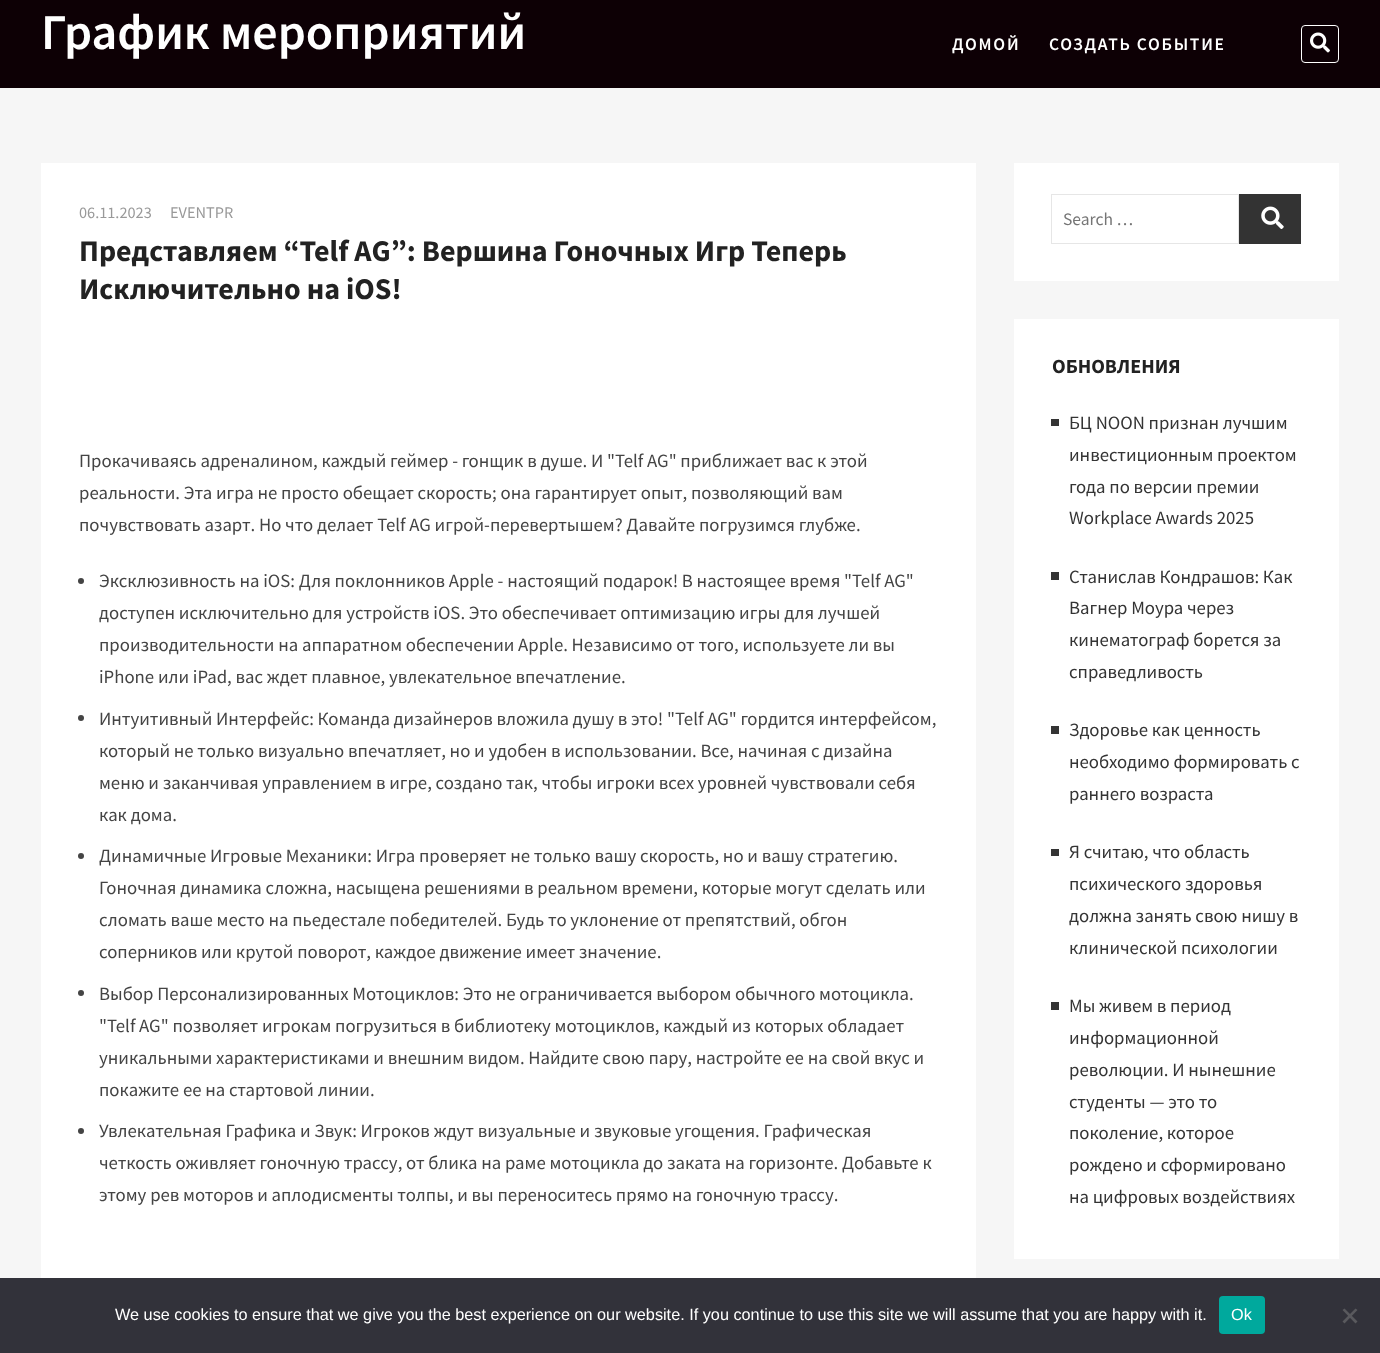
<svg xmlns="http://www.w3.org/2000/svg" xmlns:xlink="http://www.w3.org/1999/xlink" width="1380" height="1353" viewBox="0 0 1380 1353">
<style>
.cls-1{font:600 50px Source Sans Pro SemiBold;fill:#ffffff}
.cls-2{font:600 17.5px Source Sans Pro SemiBold;letter-spacing:1.75px;fill:#ffffff}
.cls-3{font:16.25px Source Sans Pro;fill:#999999}
.cls-4{font:bold 30px Source Sans Pro;fill:#222222}
.cls-5{font:18.75px Source Sans Pro;fill:#444444}
.cls-6{font:17.5px Source Sans Pro;fill:#757575}
.cls-7{font:bold 20px Source Sans Pro;fill:#222222}
.cls-8{font:18.75px Source Sans Pro;fill:#343434}
.cls-9{font:16.25px Liberation Sans;fill:#ffffff}
</style>
<rect width="100%" height="100%" fill="#f6f6f6"/>
<rect fill="#0d0005" x="0" y="0" width="1380" height="88"/>
<rect fill="none" stroke="#ffffff" x="1301.5" y="25.5" width="37" height="37" rx="3.5"/>
<image xlink:href="image0.png" x="1310" y="32" width="20" height="21"/>
<rect fill="#ffffff" x="41" y="163" width="935" height="1115"/>
<circle fill="#444444" cx="81" cy="581" r="3"/>
<circle fill="#444444" cx="81" cy="718" r="3"/>
<circle fill="#444444" cx="81" cy="856" r="3"/>
<circle fill="#444444" cx="81" cy="993" r="3"/>
<circle fill="#444444" cx="81" cy="1131" r="3"/>
<rect fill="#ffffff" x="1014" y="163" width="325" height="118"/>
<rect fill="none" stroke="#e6e6e6" x="1051.5" y="194.5" width="187" height="49"/>
<rect fill="#333333" x="1239" y="194" width="62" height="50"/>
<image xlink:href="image1.png" x="1261" y="206" width="23" height="23"/>
<rect fill="#ffffff" x="1014" y="319" width="325" height="940"/>
<rect fill="#343434" x="1051" y="419" width="8" height="7"/>
<rect fill="#343434" x="1051" y="572" width="8" height="8"/>
<rect fill="#343434" x="1051" y="726" width="8" height="8"/>
<rect fill="#343434" x="1051" y="849" width="8" height="7"/>
<rect fill="#343434" x="1051" y="1002" width="8" height="8"/>
<rect fill="#32323a" x="0" y="1278" width="1380" height="75"/>
<rect fill="#00a99d" x="1219" y="1296" width="46" height="38" rx="4"/>
<path fill="#59595d" d="M1355.5 1308.5L1357.5 1310L1344.5 1323.5L1342.5 1321.5Z"/>
<path fill="#59595d" d="M1342.5 1310L1344.5 1308.5L1357.5 1321.5L1355.5 1323.5Z"/>
<text class="cls-1" x="41" y="49">График мероприятий</text>
<text class="cls-2" x="952" y="50">ДОМОЙ</text>
<text class="cls-2" x="1049" y="50">СОЗДАТЬ СОБЫТИЕ</text>
<text class="cls-3" x="79" y="218">06.11.2023</text>
<text class="cls-3" x="170" y="218">EVENTPR</text>
<text class="cls-4"><tspan x="79" y="261">Представляем “Telf AG”: Вершина Гоночных Игр Теперь</tspan><tspan x="79" y="299">Исключительно на iOS!</tspan></text>
<text class="cls-5"><tspan x="79" y="467">Прокачиваясь адреналином, каждый геймер - гонщик в душе. И "Telf AG" приближает вас к этой</tspan><tspan x="79" y="499">реальности. Эта игра не просто обещает скорость; она гарантирует опыт, позволяющий вам</tspan><tspan x="79" y="531">почувствовать азарт. Но что делает Telf AG игрой-перевертышем? Давайте погрузимся глубже.</tspan></text>
<text class="cls-5"><tspan x="99" y="587">Эксклюзивность на iOS: Для поклонников Apple - настоящий подарок! В настоящее время "Telf AG"</tspan><tspan x="99" y="619">доступен исключительно для устройств iOS. Это обеспечивает оптимизацию игры для лучшей</tspan><tspan x="99" y="651">производительности на аппаратном обеспечении Apple. Независимо от того, используете ли вы</tspan><tspan x="99" y="683">iPhone или iPad, вас ждет плавное, увлекательное впечатление.</tspan></text>
<text class="cls-5"><tspan x="99" y="725">Интуитивный Интерфейс: Команда дизайнеров вложила душу в это! "Telf AG" гордится интерфейсом,</tspan><tspan x="99" y="757">который не только визуально впечатляет, но и удобен в использовании. Все, начиная с дизайна</tspan><tspan x="99" y="789">меню и заканчивая управлением в игре, создано так, чтобы игроки всех уровней чувствовали себя</tspan><tspan x="99" y="821">как дома.</tspan></text>
<text class="cls-5"><tspan x="99" y="862">Динамичные Игровые Механики: Игра проверяет не только вашу скорость, но и вашу стратегию.</tspan><tspan x="99" y="894">Гоночная динамика сложна, насыщена решениями в реальном времени, которые могут сделать или</tspan><tspan x="99" y="926">сломать ваше место на пьедестале победителей. Будь то уклонение от препятствий, обгон</tspan><tspan x="99" y="958">соперников или крутой поворот, каждое движение имеет значение.</tspan></text>
<text class="cls-5"><tspan x="99" y="1000">Выбор Персонализированных Мотоциклов: Это не ограничивается выбором обычного мотоцикла.</tspan><tspan x="99" y="1032">"Telf AG" позволяет игрокам погрузиться в библиотеку мотоциклов, каждый из которых обладает</tspan><tspan x="99" y="1064">уникальными характеристиками и внешним видом. Найдите свою пару, настройте ее на свой вкус и</tspan><tspan x="99" y="1096">покажите ее на стартовой линии.</tspan></text>
<text class="cls-5"><tspan x="99" y="1137">Увлекательная Графика и Звук: Игроков ждут визуальные и звуковые угощения. Графическая</tspan><tspan x="99" y="1169">четкость оживляет гоночную трассу, от блика на раме мотоцикла до заката на горизонте. Добавьте к</tspan><tspan x="99" y="1201">этому рев моторов и аплодисменты толпы, и вы переноситесь прямо на гоночную трассу.</tspan></text>
<text class="cls-6" x="1063" y="225">Search …</text>
<text class="cls-7" x="1052" y="373">ОБНОВЛЕНИЯ</text>
<text class="cls-8"><tspan x="1069" y="429">БЦ NOON признан лучшим</tspan><tspan x="1069" y="461">инвестиционным проектом</tspan><tspan x="1069" y="493">года по версии премии</tspan><tspan x="1069" y="524">Workplace Awards 2025</tspan></text>
<text class="cls-8"><tspan x="1069" y="583">Станислав Кондрашов: Как</tspan><tspan x="1069" y="614">Вагнер Моура через</tspan><tspan x="1069" y="646">кинематограф борется за</tspan><tspan x="1069" y="678">справедливость</tspan></text>
<text class="cls-8"><tspan x="1069" y="736">Здоровье как ценность</tspan><tspan x="1069" y="768">необходимо формировать с</tspan><tspan x="1069" y="800">раннего возраста</tspan></text>
<text class="cls-8"><tspan x="1069" y="858">Я считаю, что область</tspan><tspan x="1069" y="890">психического здоровья</tspan><tspan x="1069" y="922">должна занять свою нишу в</tspan><tspan x="1069" y="954">клинической психологии</tspan></text>
<text class="cls-8"><tspan x="1069" y="1012">Мы живем в период</tspan><tspan x="1069" y="1044">информационной</tspan><tspan x="1069" y="1076">революции. И нынешние</tspan><tspan x="1069" y="1108">студенты — это то</tspan><tspan x="1069" y="1139">поколение, которое</tspan><tspan x="1069" y="1171">рождено и сформировано</tspan><tspan x="1069" y="1203">на цифровых воздействиях</tspan></text>
<text class="cls-9" x="115" y="1320">We use cookies to ensure that we give you the best experience on our website. If you continue to use this site we will assume that you are happy with it.</text>
<text class="cls-9" x="1231" y="1320">Ok</text>
</svg>
